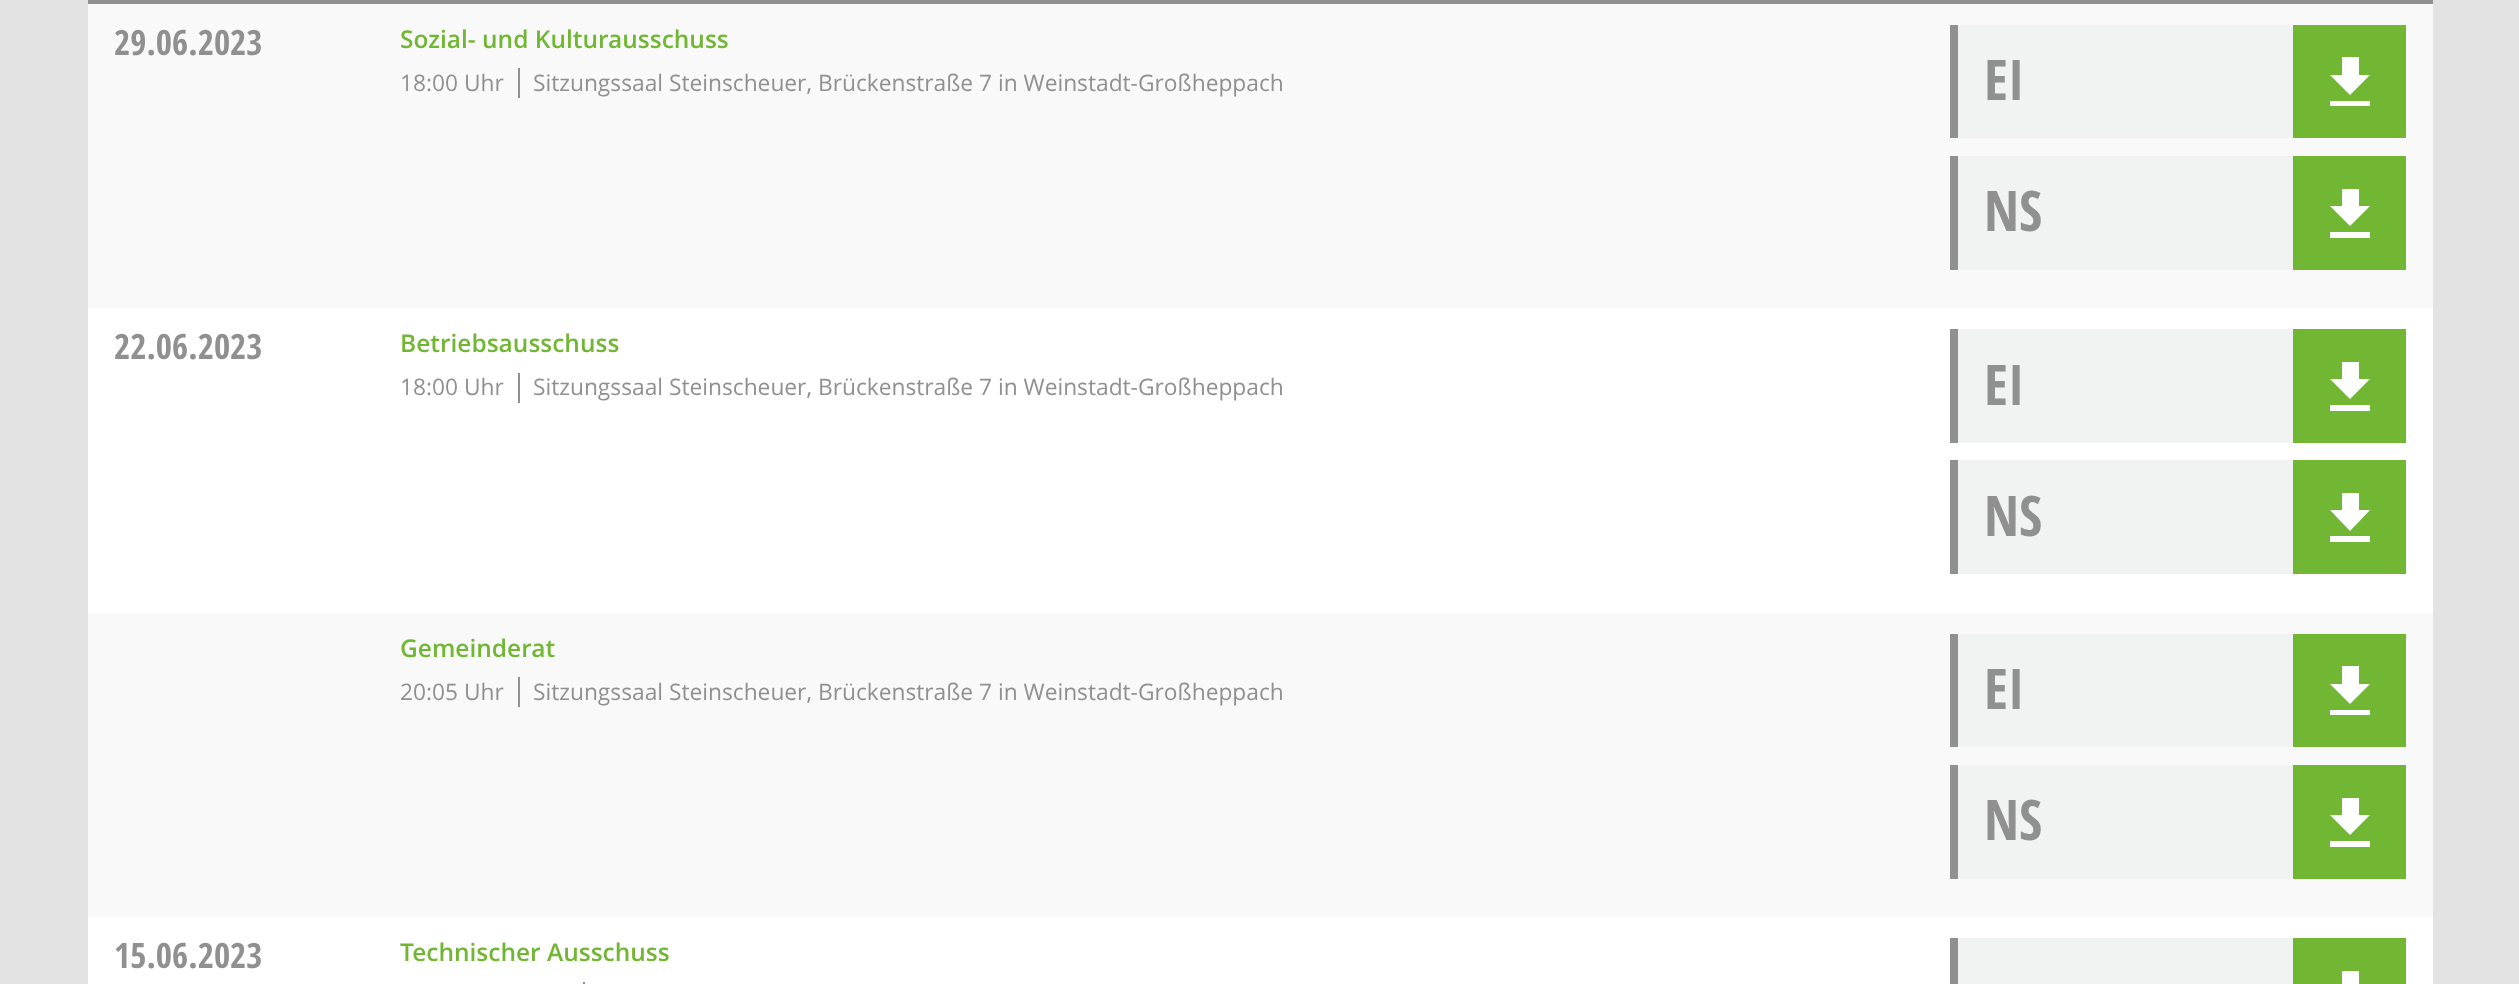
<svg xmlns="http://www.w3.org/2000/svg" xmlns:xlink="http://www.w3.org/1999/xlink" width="2519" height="984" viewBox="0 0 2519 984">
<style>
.cls-1{font:bold 35px Open Sans Condensed;fill:#909090}
.cls-2{font:600 24.5px Open Sans;fill:#71b733}
.cls-3{font:22.75px Open Sans;fill:#909090}
.cls-4{font:bold 56px Open Sans Condensed;fill:#909090}
</style>
<rect width="100%" height="100%" fill="#e3e3e3"/>
<rect fill="#ffffff" x="88" y="308" width="2345" height="676"/>
<rect fill="#909090" x="88" y="0" width="2345" height="4"/>
<rect fill="#f9f9f9" x="88" y="4" width="2345" height="304"/>
<rect fill="#909090" x="518" y="68" width="2" height="30"/>
<rect fill="#f0f3f2" x="1958" y="25" width="335" height="113"/>
<rect fill="#909090" x="1950" y="25" width="8" height="113"/>
<rect fill="#71b733" x="2293" y="25" width="113" height="113"/>
<path fill="#ffffff" d="M2370 75H2359V57H2342V75H2330L2350 95ZM2330 101V106H2370V101Z"/>
<rect fill="#f0f3f2" x="1958" y="156" width="335" height="114"/>
<rect fill="#909090" x="1950" y="156" width="8" height="114"/>
<rect fill="#71b733" x="2293" y="156" width="113" height="114"/>
<path fill="#ffffff" d="M2370 206H2359V189H2342V206H2330L2350 226ZM2330 232V238H2370V232Z"/>
<rect fill="#909090" x="518" y="373" width="2" height="30"/>
<rect fill="#f0f3f2" x="1958" y="329" width="335" height="114"/>
<rect fill="#909090" x="1950" y="329" width="8" height="114"/>
<rect fill="#71b733" x="2293" y="329" width="113" height="114"/>
<path fill="#ffffff" d="M2370 379H2359V362H2342V379H2330L2350 399ZM2330 405V411H2370V405Z"/>
<rect fill="#f0f3f2" x="1958" y="460" width="335" height="114"/>
<rect fill="#909090" x="1950" y="460" width="8" height="114"/>
<rect fill="#71b733" x="2293" y="460" width="113" height="114"/>
<path fill="#ffffff" d="M2370 510H2359V493H2342V510H2330L2350 531ZM2330 536V542H2370V536Z"/>
<rect fill="#f9f9f9" x="88" y="613" width="2345" height="304"/>
<rect fill="#909090" x="518" y="677" width="2" height="30"/>
<rect fill="#f0f3f2" x="1958" y="634" width="335" height="113"/>
<rect fill="#909090" x="1950" y="634" width="8" height="113"/>
<rect fill="#71b733" x="2293" y="634" width="113" height="113"/>
<path fill="#ffffff" d="M2370 684H2359V666H2342V684H2330L2350 704ZM2330 710V715H2370V710Z"/>
<rect fill="#f0f3f2" x="1958" y="765" width="335" height="114"/>
<rect fill="#909090" x="1950" y="765" width="8" height="114"/>
<rect fill="#71b733" x="2293" y="765" width="113" height="114"/>
<path fill="#ffffff" d="M2370 815H2359V798H2342V815H2330L2350 835ZM2330 841V847H2370V841Z"/>
<rect fill="#909090" x="583" y="982" width="2" height="2"/>
<rect fill="#f0f3f2" x="1958" y="938" width="335" height="46"/>
<rect fill="#909090" x="1950" y="938" width="8" height="46"/>
<rect fill="#71b733" x="2293" y="938" width="113" height="46"/>
<path fill="#ffffff" d="M2370 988H2359V971H2342V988H2330L2350 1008ZM2330 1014V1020H2370V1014Z"/>
<text class="cls-1" x="114" y="55">29.06.2023</text>
<text class="cls-2" x="400" y="48">Sozial- und Kulturausschuss</text>
<text class="cls-3" x="400" y="91">18:00 Uhr</text>
<text class="cls-3" x="533" y="91">Sitzungssaal Steinscheuer, Brückenstraße 7 in Weinstadt-Großheppach</text>
<text class="cls-4" x="1984" y="100">EI</text>
<text class="cls-4" x="1984" y="231">NS</text>
<text class="cls-1" x="114" y="359">22.06.2023</text>
<text class="cls-2" x="400" y="352">Betriebsausschuss</text>
<text class="cls-3" x="400" y="395">18:00 Uhr</text>
<text class="cls-3" x="533" y="395">Sitzungssaal Steinscheuer, Brückenstraße 7 in Weinstadt-Großheppach</text>
<text class="cls-4" x="1984" y="405">EI</text>
<text class="cls-4" x="1984" y="536">NS</text>
<text class="cls-2" x="400" y="657">Gemeinderat</text>
<text class="cls-3" x="400" y="700">20:05 Uhr</text>
<text class="cls-3" x="533" y="700">Sitzungssaal Steinscheuer, Brückenstraße 7 in Weinstadt-Großheppach</text>
<text class="cls-4" x="1984" y="709">EI</text>
<text class="cls-4" x="1984" y="840">NS</text>
<text class="cls-1" x="114" y="968">15.06.2023</text>
<text class="cls-2" x="400" y="961">Technischer Ausschuss</text>
</svg>
